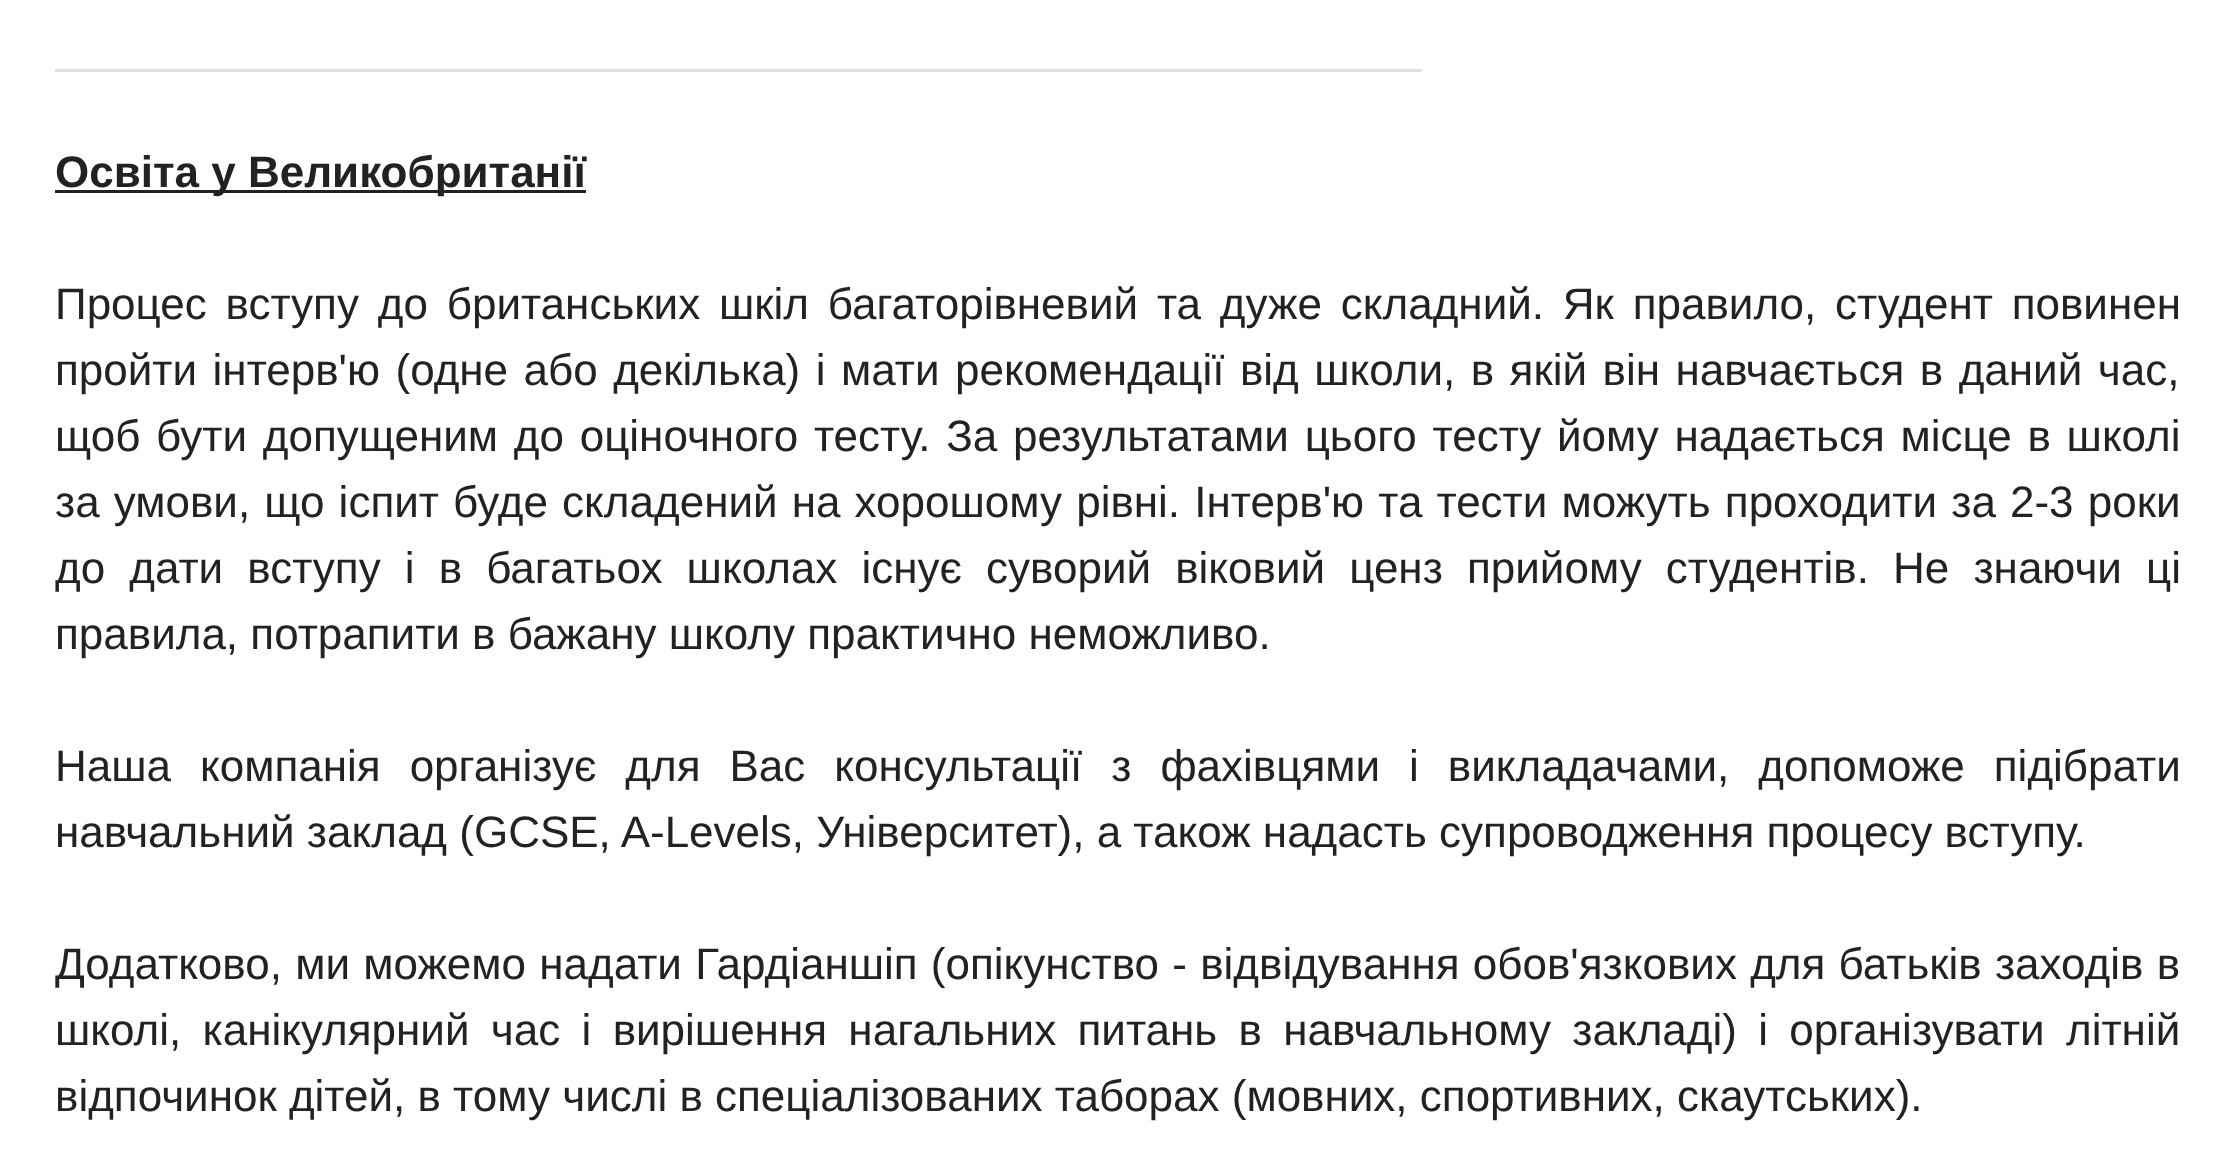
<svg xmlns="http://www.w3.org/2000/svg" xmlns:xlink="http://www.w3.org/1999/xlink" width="2234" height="1150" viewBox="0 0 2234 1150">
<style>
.cls-1{font:bold 44px Liberation Sans;fill:#222222}
.cls-2{font:44px Liberation Sans;fill:#222222}
</style>
<rect width="100%" height="100%" fill="#ffffff"/>
<rect fill="#e1e1e1" x="55" y="69" width="1367" height="3"/>
<rect fill="#222222" x="55" y="190" width="531" height="3"/>
<text class="cls-1" x="55" y="187">Освіта у Великобританії</text>
<text class="cls-2"><tspan x="55" y="319" word-spacing="6.6">Процес вступу до британських шкіл багаторівневий та дуже складний. Як правило, студент повинен</tspan><tspan x="55" y="385" word-spacing="3.25">пройти інтерв'ю (одне або декілька) і мати рекомендації від школи, в якій він навчається в даний час,</tspan><tspan x="55" y="451" word-spacing="3.5">щоб бути допущеним до оціночного тесту. За результатами цього тесту йому надається місце в школі</tspan><tspan x="55" y="517" word-spacing="1.9">за умови, що іспит буде складений на хорошому рівні. Інтерв'ю та тести можуть проходити за 2-3 роки</tspan><tspan x="55" y="583" word-spacing="11.9">до дати вступу і в багатьох школах існує суворий віковий ценз прийому студентів. Не знаючи ці</tspan><tspan x="55" y="649">правила, потрапити в бажану школу практично неможливо.</tspan></text>
<text class="cls-2"><tspan x="55" y="781" word-spacing="16.75">Наша компанія організує для Вас консультації з фахівцями і викладачами, допоможе підібрати</tspan><tspan x="55" y="847">навчальний заклад (GCSE, A-Levels, Університет), а також надасть супроводження процесу вступу.</tspan></text>
<text class="cls-2"><tspan x="55" y="979" word-spacing="1">Додатково, ми можемо надати Гардіаншіп (опікунство - відвідування обов'язкових для батьків заходів в</tspan><tspan x="55" y="1045" word-spacing="9.1">школі, канікулярний час і вирішення нагальних питань в навчальному закладі) і організувати літній</tspan><tspan x="55" y="1111">відпочинок дітей, в тому числі в спеціалізованих таборах (мовних, спортивних, скаутських).</tspan></text>
</svg>
